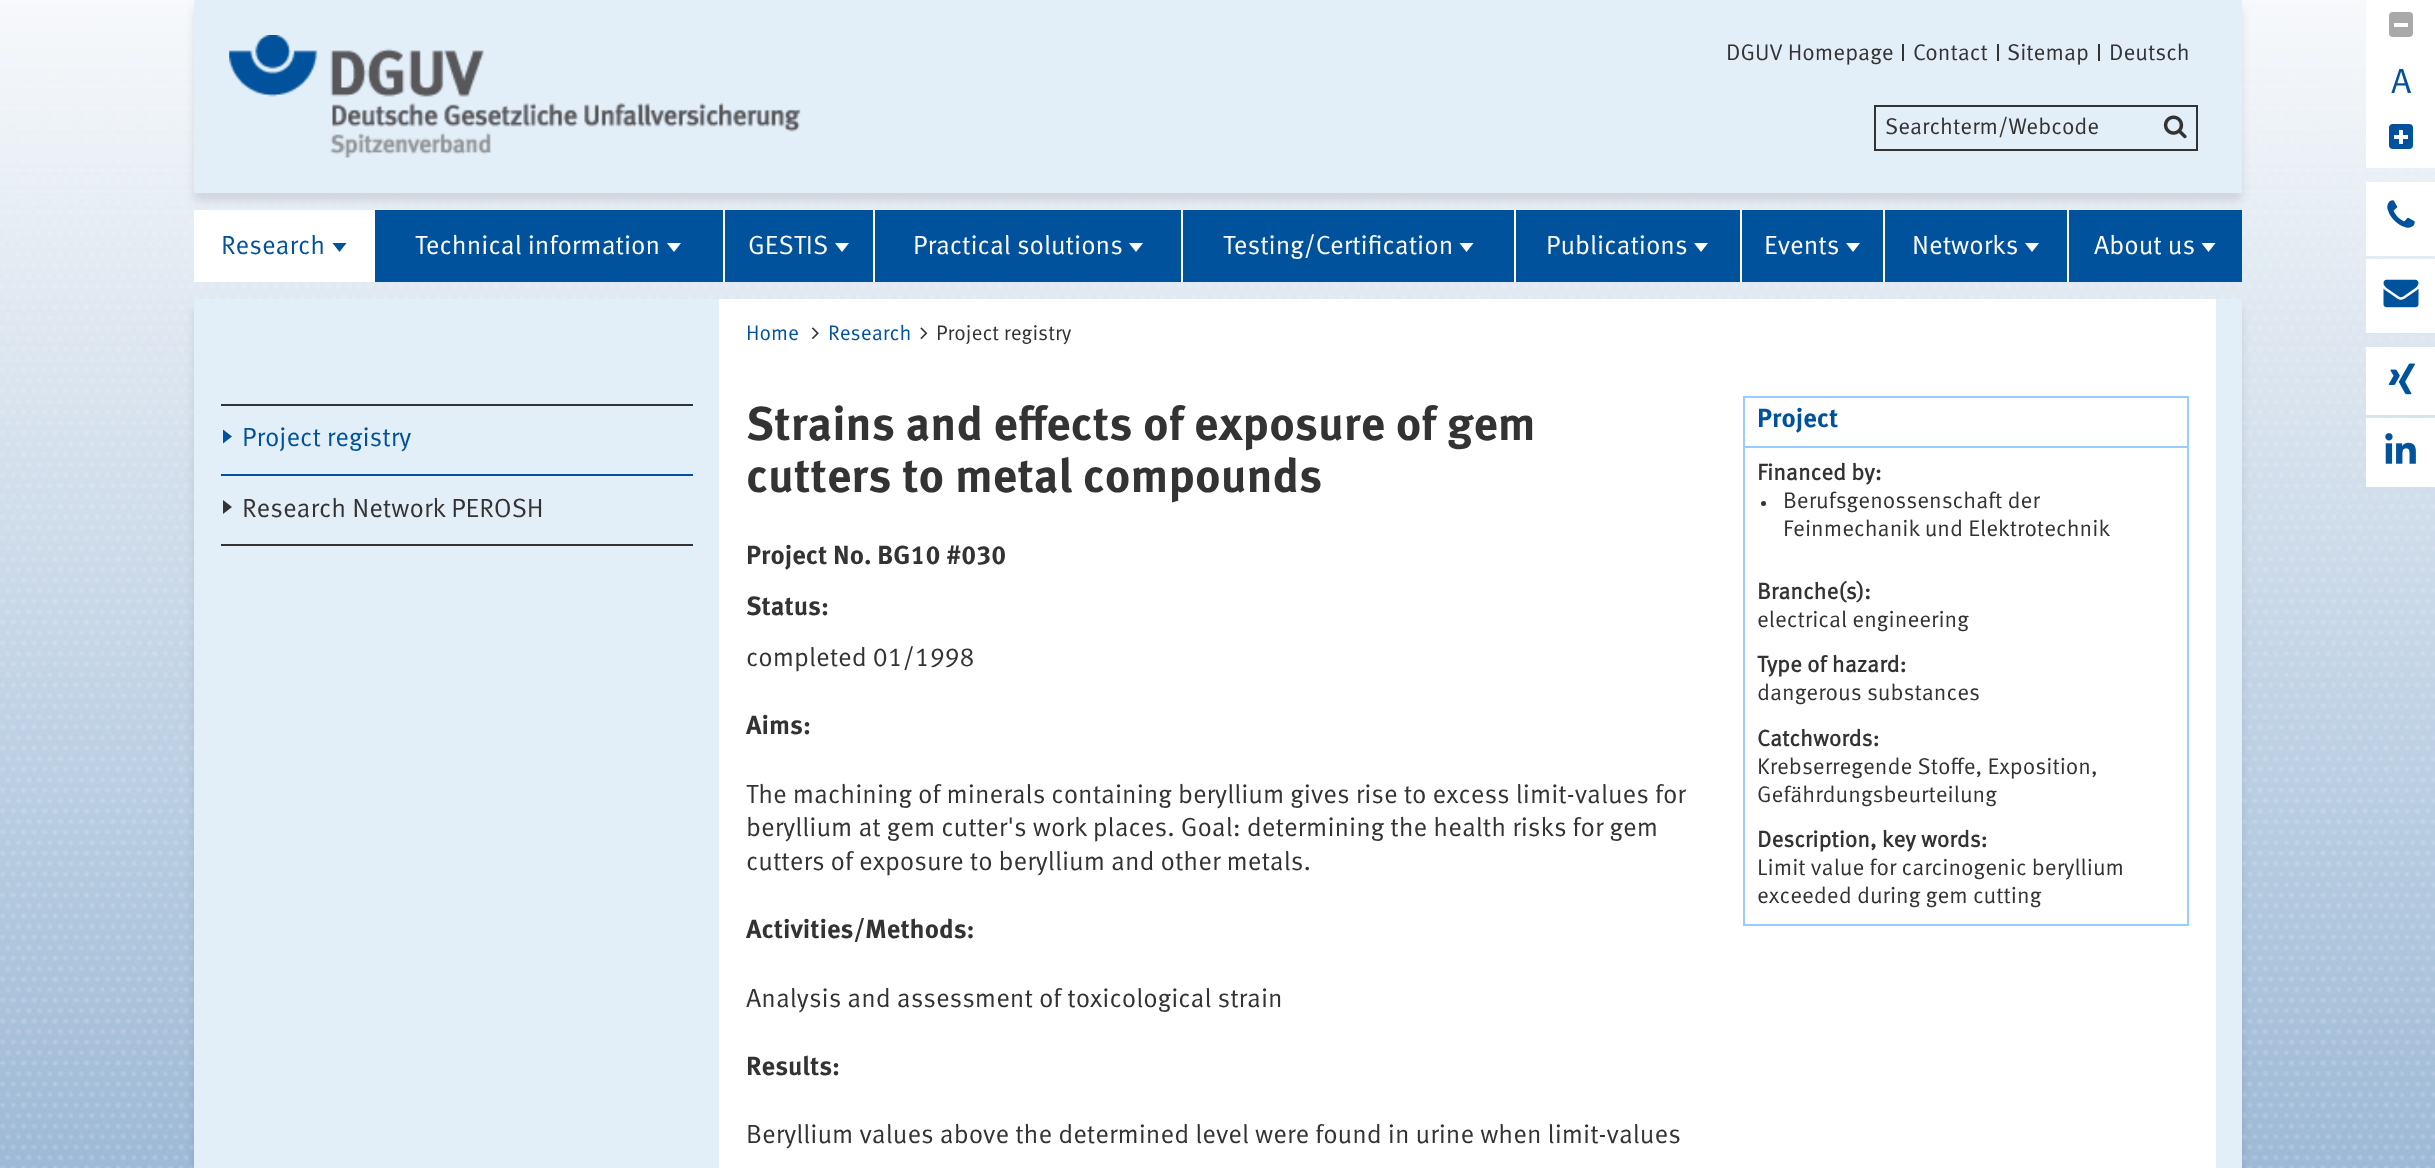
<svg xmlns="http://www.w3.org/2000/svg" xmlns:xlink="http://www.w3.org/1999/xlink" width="2435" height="1168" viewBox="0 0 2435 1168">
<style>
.cls-1{font:22.75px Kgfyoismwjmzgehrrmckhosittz;fill:#333333}
.cls-2{font:35px Kgfyoismwjmzgehrrmckhosittz;fill:#00529c}
.cls-3{font:26.25px Kgfyoismwjmzgehrrmckhosittz;fill:#00529c}
.cls-4{font:26.25px Kgfyoismwjmzgehrrmckhosittz;fill:#ffffff}
.cls-5{font:26.25px Kgfyoismwjmzgehrrmckhosittz;fill:#333333}
.cls-6{font:21px Kgfyoismwjmzgehrrmckhosittz;fill:#00529c}
.cls-7{font:21px Kgfyoismwjmzgehrrmckhosittz;fill:#333333}
.cls-8{font:bold 47.25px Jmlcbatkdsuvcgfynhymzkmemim;fill:#333333}
.cls-9{font:bold 26.25px Jmlcbatkdsuvcgfynhymzkmemim;fill:#333333}
.cls-10{font:bold 26.25px Jmlcbatkdsuvcgfynhymzkmemim;fill:#00529c}
.cls-11{font:bold 22.75px Kgfyoismwjmzgehrrmckhosittz;fill:#333333}
</style>
<rect width="100%" height="100%" fill="#ffffff"/>
<image xlink:href="image0.png" x="0" y="0" width="2435" height="1168"/>
<rect fill="#000000" fill-opacity="0.1" filter="blur(4.5px)" x="194" y="9" width="2048" height="192"/>
<rect fill="#e2eef8" x="194" y="0" width="2048" height="193"/>
<image xlink:href="image1.png" x="229" y="35" width="572" height="123"/>
<rect fill="#333333" x="1902" y="44" width="2" height="17"/>
<rect fill="#333333" x="1997" y="44" width="2" height="17"/>
<rect fill="#333333" x="2098" y="44" width="2" height="17"/>
<rect fill="#ffffff" x="2366" y="0" width="69" height="168"/>
<rect fill="#a9a9a9" x="2389" y="12" width="24" height="25" rx="4"/>
<rect fill="#ffffff" x="2394" y="23" width="14" height="4"/>
<rect fill="#00529c" x="2389" y="124" width="24" height="25" rx="4"/>
<rect fill="#ffffff" x="2394" y="135" width="14" height="4"/>
<rect fill="#ffffff" x="2399" y="130" width="4" height="14"/>
<rect fill="#ffffff" x="2366" y="182" width="69" height="74"/>
<image xlink:href="image2.png" x="2387" y="200" width="28" height="28"/>
<rect fill="#ffffff" x="2366" y="259" width="69" height="74"/>
<image xlink:href="image3.png" x="2383" y="279" width="36" height="29"/>
<rect fill="#ffffff" x="2366" y="347" width="69" height="68"/>
<image xlink:href="image4.png" x="2388" y="363" width="27" height="32"/>
<rect fill="#ffffff" x="2366" y="418" width="69" height="69"/>
<image xlink:href="image5.png" x="2385" y="433" width="31" height="31"/>
<rect fill="none" stroke="#333333" stroke-width="2" x="1875" y="106" width="322" height="44"/>
<image xlink:href="image6.png" x="2163" y="115" width="24" height="24"/>
<rect fill="#00529c" x="375" y="210" width="1867" height="72"/>
<rect fill="#ffffff" x="194" y="210" width="181" height="72"/>
<path fill="#00529c" d="M332.5 243H346.5L339.5 252Z"/>
<rect fill="#ffffff" x="723" y="210" width="2" height="72"/>
<path fill="#ffffff" d="M667 243H681L674 252Z"/>
<rect fill="#ffffff" x="873" y="210" width="2" height="72"/>
<path fill="#ffffff" d="M835 243H849L842 252Z"/>
<rect fill="#ffffff" x="1181" y="210" width="2" height="72"/>
<path fill="#ffffff" d="M1129 243H1143L1136 252Z"/>
<rect fill="#ffffff" x="1514" y="210" width="2" height="72"/>
<path fill="#ffffff" d="M1459.5 243H1473.5L1466.5 252Z"/>
<rect fill="#ffffff" x="1740" y="210" width="2" height="72"/>
<path fill="#ffffff" d="M1694 243H1708L1701 252Z"/>
<rect fill="#ffffff" x="1883" y="210" width="2" height="72"/>
<path fill="#ffffff" d="M1846 243H1860L1853 252Z"/>
<rect fill="#ffffff" x="2067" y="210" width="2" height="72"/>
<path fill="#ffffff" d="M2025 243H2039L2032 252Z"/>
<path fill="#ffffff" d="M2201.5 243H2215.5L2208.5 252Z"/>
<rect fill="#000000" fill-opacity="0.1" filter="blur(4.5px)" x="194" y="308" width="2048" height="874"/>
<rect fill="#e2eef8" x="194" y="299" width="2048" height="869"/>
<rect fill="#333333" x="221" y="404" width="472" height="2"/>
<rect fill="#00529c" x="221" y="474" width="472" height="2"/>
<path fill="#00529c" d="M223 443.5V429.5L232 436.5Z"/>
<rect fill="#333333" x="221" y="544" width="472" height="2"/>
<path fill="#333333" d="M223 514V500L232 507Z"/>
<rect fill="#ffffff" x="719" y="299" width="1497" height="869"/>
<image xlink:href="image7.png" x="811" y="327" width="8" height="12"/>
<image xlink:href="image8.png" x="920" y="327" width="8" height="13"/>
<rect fill="none" stroke="#99ccff" stroke-width="2" x="1744" y="397" width="444" height="528"/>
<rect fill="#99ccff" x="1745" y="446" width="443" height="2"/>
<circle fill="#333333" cx="1763.5" cy="503.5" r="2.5"/>
<text class="cls-1" x="1726" y="60">DGUV Homepage</text>
<text class="cls-1" x="1913" y="60">Contact</text>
<text class="cls-1" x="2007" y="60">Sitemap</text>
<text class="cls-1" x="2109" y="60">Deutsch</text>
<text class="cls-2" x="2391" y="93">A</text>
<text class="cls-1" x="1885" y="134">Searchterm/Webcode</text>
<text class="cls-3" x="221" y="254">Research</text>
<text class="cls-4" x="415" y="254">Technical information</text>
<text class="cls-4" x="748" y="254">GESTIS</text>
<text class="cls-4" x="913" y="254">Practical solutions</text>
<text class="cls-4" x="1223" y="254">Testing/Certification</text>
<text class="cls-4" x="1546" y="254">Publications</text>
<text class="cls-4" x="1764" y="254">Events</text>
<text class="cls-4" x="1912" y="254">Networks</text>
<text class="cls-4" x="2094" y="254">About us</text>
<text class="cls-3" x="242" y="446">Project registry</text>
<text class="cls-5" x="242" y="517">Research Network PEROSH</text>
<text class="cls-6" x="746" y="340">Home</text>
<text class="cls-6" x="828" y="340">Research</text>
<text class="cls-7" x="936" y="340">Project registry</text>
<text class="cls-8"><tspan x="746" y="440">Strains and effects of exposure of gem</tspan><tspan x="746" y="492">cutters to metal compounds</tspan></text>
<text class="cls-9"><tspan x="746" y="564">Project No. BG10 #030</tspan><tspan x="746" y="615">Status:</tspan></text>
<text class="cls-5" x="746" y="666">completed 01/1998</text>
<text class="cls-9" x="746" y="734">Aims:</text>
<text class="cls-5"><tspan x="746" y="803">The machining of minerals containing beryllium gives rise to excess limit-values for</tspan><tspan x="746" y="836">beryllium at gem cutter's work places. Goal: determining the health risks for gem</tspan><tspan x="746" y="870">cutters of exposure to beryllium and other metals.</tspan></text>
<text class="cls-9" x="746" y="938">Activities/Methods:</text>
<text class="cls-5" x="746" y="1007">Analysis and assessment of toxicological strain</text>
<text class="cls-9" x="746" y="1075">Results:</text>
<text class="cls-5" x="746" y="1143">Beryllium values above the determined level were found in urine when limit-values</text>
<text class="cls-10" x="1757" y="427">Project</text>
<text class="cls-11" x="1757" y="480">Financed by:</text>
<text class="cls-1"><tspan x="1783" y="508">Berufsgenossenschaft der</tspan><tspan x="1783" y="536">Feinmechanik und Elektrotechnik</tspan></text>
<text class="cls-11" x="1757" y="599">Branche(s):</text>
<text class="cls-1" x="1757" y="627">electrical engineering</text>
<text class="cls-11" x="1757" y="672">Type of hazard:</text>
<text class="cls-1" x="1757" y="700">dangerous substances</text>
<text class="cls-11" x="1757" y="746">Catchwords:</text>
<text class="cls-1"><tspan x="1757" y="774">Krebserregende Stoffe, Exposition,</tspan><tspan x="1757" y="802">Gefährdungsbeurteilung</tspan></text>
<text class="cls-11" x="1757" y="847">Description, key words:</text>
<text class="cls-1"><tspan x="1757" y="875">Limit value for carcinogenic beryllium</tspan><tspan x="1757" y="903">exceeded during gem cutting</tspan></text>
</svg>
